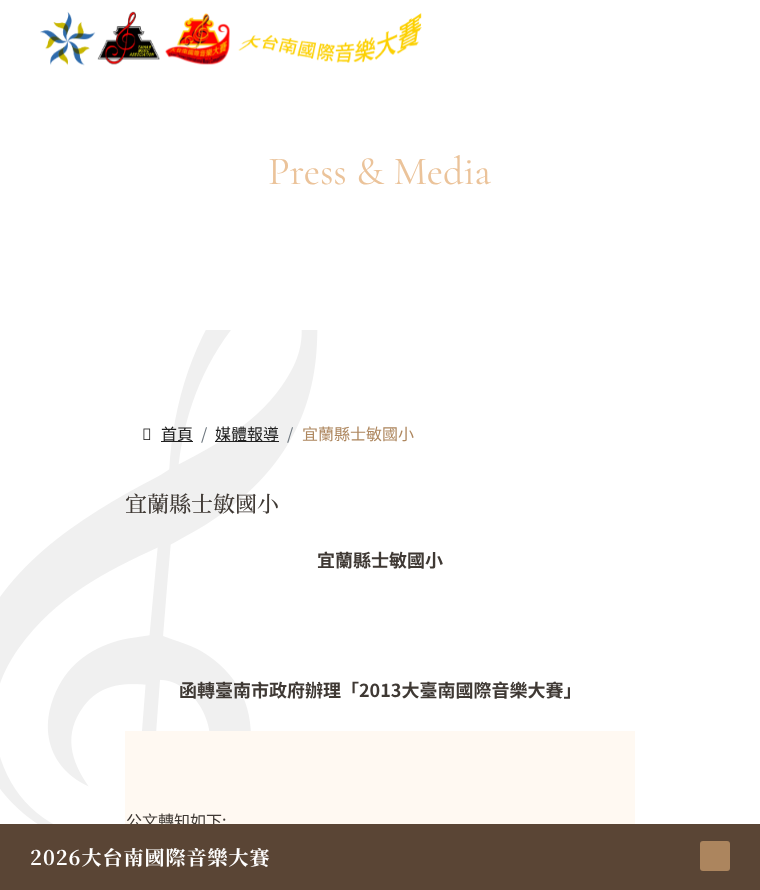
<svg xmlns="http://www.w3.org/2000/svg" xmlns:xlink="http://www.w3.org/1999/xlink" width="760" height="890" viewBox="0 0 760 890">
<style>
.cls-1{font:40px Cormorant Garamond;fill:#ebc39a}
.cls-2{font:16px Noto Sans SC;fill:#212121}
.cls-3{font:16px Noto Sans SC;fill:#6c757d}
.cls-4{font:16px Noto Sans SC;fill:#ae875f}
.cls-5{font:500 22px Noto Serif TC;fill:#3f3934}
.cls-6{font:bold 18px Noto Sans SC;fill:#3f3934}
.cls-7{font:16px Noto Sans SC;fill:#3f3934}
.cls-8{font:bold 20px Noto Serif TC;letter-spacing:1px;fill:#ffffff}
</style>
<rect width="100%" height="100%" fill="#ffffff"/>
<image xlink:href="image0.png" x="0" y="330" width="318" height="494"/>
<image xlink:href="image1.png" x="143" y="428" width="8" height="12"/>
<rect fill="#212121" x="161" y="441" width="32" height="1"/>
<rect fill="#212121" x="215" y="441" width="64" height="1"/>
<rect fill="#fff9f2" x="125" y="731" width="510" height="93"/>
<image xlink:href="image2.png" x="40" y="11" width="382" height="55"/>
<text class="cls-1" x="268" y="184">Press &amp; Media</text>
<text class="cls-2" x="161" y="440">首頁</text>
<text class="cls-3" x="201" y="440">/</text>
<text class="cls-2" x="215" y="440">媒體報導</text>
<text class="cls-3" x="287" y="440">/</text>
<text class="cls-4" x="302" y="440">宜蘭縣士敏國小</text>
<text class="cls-5" x="125" y="512">宜蘭縣士敏國小</text>
<text class="cls-6" x="317" y="567">宜蘭縣士敏國小</text>
<text class="cls-6" x="179" y="697">函轉臺南市政府辦理「2013大臺南國際音樂大賽」</text>
<text class="cls-7" x="126" y="827">公文轉知如下:</text>
<rect fill="#5a4535" x="0" y="824" width="760" height="66"/>
<text class="cls-8" x="30" y="865">2026大台南國際音樂大賽</text>
<rect fill="#ac855e" x="700" y="841" width="30" height="30" rx="3"/>
</svg>
